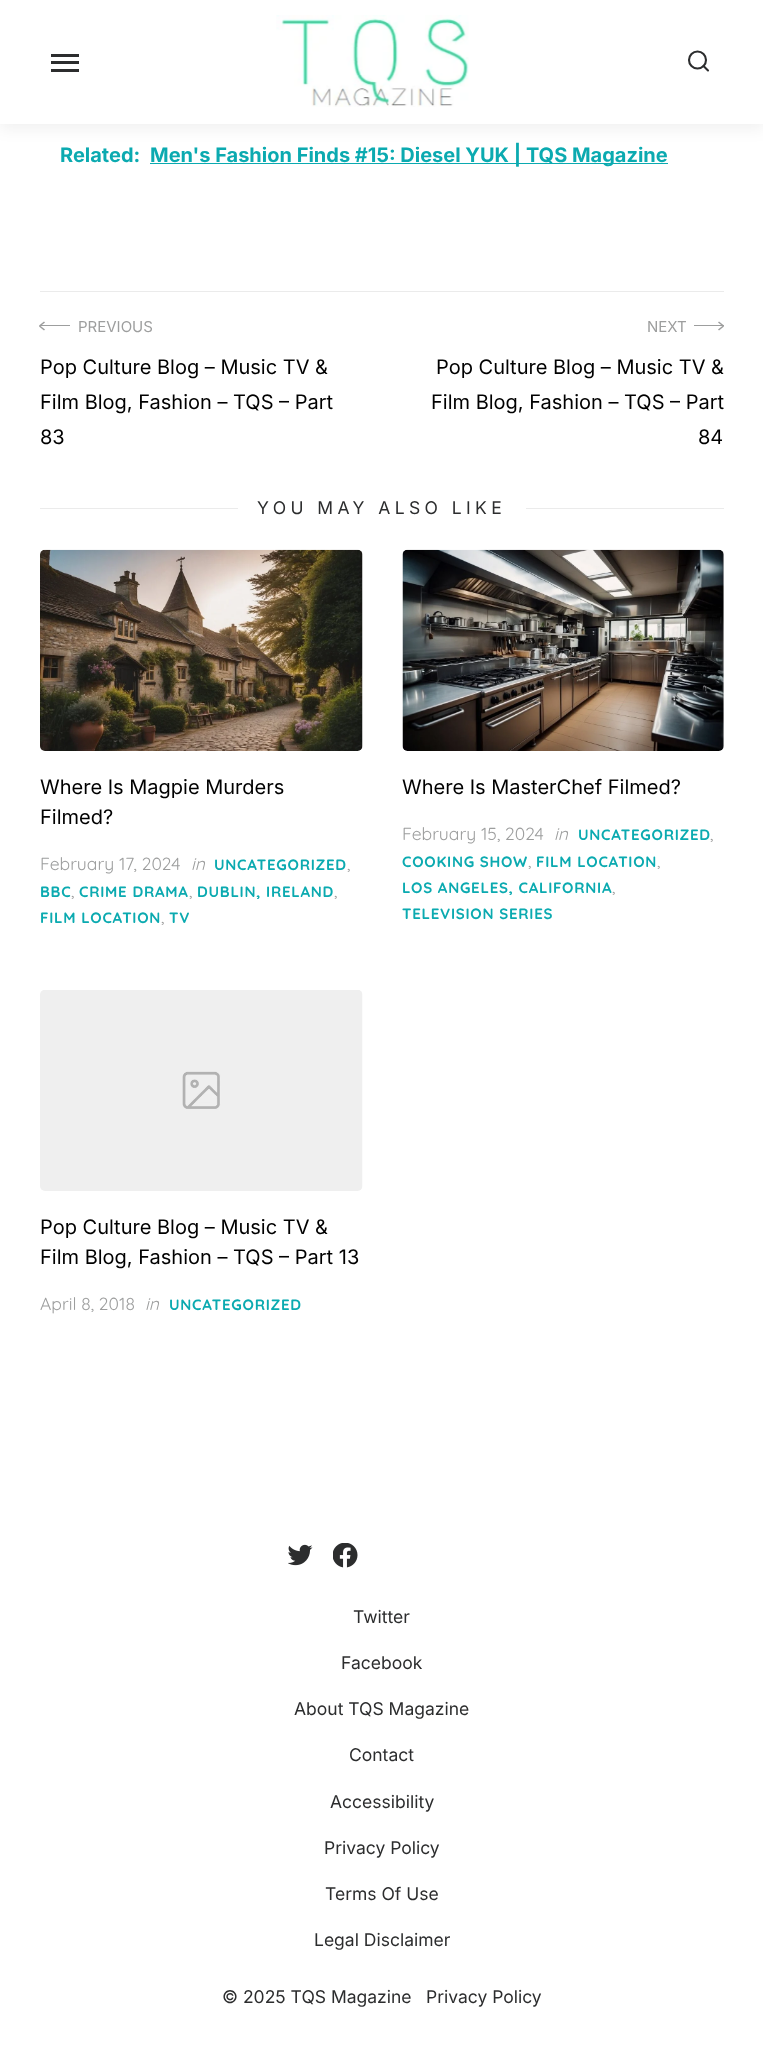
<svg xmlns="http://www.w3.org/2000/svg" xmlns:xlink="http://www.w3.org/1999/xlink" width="763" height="2048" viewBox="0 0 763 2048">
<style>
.cls-1{font:bold 20px Inter;fill:#0baab0}
.cls-2{font:15px Inter;fill:#9d9e9e}
.cls-3{font:20px Inter;fill:#000000}
.cls-4{font:17.5px Inter;letter-spacing:4.4px;fill:#2c2d2e}
.cls-5{font:17.5px Quicksand;fill:#9d9e9e}
.cls-6{font:italic 17.5px Quicksand;fill:#9d9e9e}
.cls-7{font:bold 15px Quicksand;letter-spacing:0.75px;fill:#0baab0}
.cls-8{font:17.5px Inter;fill:#2c2d2e}
</style>
<rect width="100%" height="100%" fill="#ffffff"/>
<rect fill="#000000" fill-opacity="0.06" filter="blur(7.5px)" x="0" y="5" width="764" height="124"/>
<rect fill="#ffffff" x="0" y="0" width="763" height="124"/>
<rect fill="#2c2d2e" x="51" y="61" width="28" height="3"/>
<rect fill="#2c2d2e" x="51" y="54" width="28" height="3"/>
<rect fill="#2c2d2e" x="51" y="69" width="28" height="3"/>
<image xlink:href="image0.png" x="276" y="15" width="193" height="92"/>
<circle fill="none" stroke="#2c2d2e" stroke-width="2.1" cx="697.5" cy="60" r="8.5"/>
<path fill="none" stroke="#2c2d2e" stroke-width="2.1" stroke-linecap="round" stroke-linejoin="round" d="M708 70.5L703.5 66"/>
<rect fill="#0baab0" x="150" y="163" width="518" height="1"/>
<rect fill="#ebebeb" x="40" y="291" width="684" height="1"/>
<rect fill="#9d9e9e" x="40" y="325" width="30" height="1"/>
<path fill="#9d9e9e" d="M40 325.5L45 329.5L44 330.5L39 326.5Z"/>
<path fill="#9d9e9e" d="M39 325.5L44 321.5L45 322.5L40 326.5Z"/>
<rect fill="#9d9e9e" x="694" y="325" width="30" height="1"/>
<path fill="#9d9e9e" d="M719 321.5L724 325.5L723 326.5L718 322.5Z"/>
<path fill="#9d9e9e" d="M718 329.5L723 325.5L724 326.5L719 330.5Z"/>
<rect fill="#ebebeb" x="40" y="508" width="198" height="1"/>
<rect fill="#ebebeb" x="526" y="508" width="198" height="1"/>
<image xlink:href="image1.png" x="40" y="549" width="323" height="202"/>
<image xlink:href="image2.png" x="402" y="549" width="322" height="202"/>
<image xlink:href="image3.png" x="40" y="990" width="323" height="201"/>
<image xlink:href="image4.png" x="288" y="1544" width="25" height="22"/>
<image xlink:href="image5.png" x="333" y="1543" width="25" height="25"/>
<text class="cls-1" x="60" y="162">Related:</text>
<text class="cls-1" x="150" y="162">Men's Fashion Finds #15: Diesel YUK | TQS Magazine</text>
<text class="cls-2" x="78" y="332">PREVIOUS</text>
<text class="cls-3"><tspan x="40" y="374">Pop Culture Blog – Music TV &amp;</tspan><tspan x="40" y="409">Film Blog, Fashion – TQS – Part</tspan><tspan x="40" y="444">83</tspan></text>
<text class="cls-2" x="647" y="332">NEXT</text>
<text class="cls-3" x="436" y="374">Pop Culture Blog – Music TV &amp;</text>
<text class="cls-3" x="431" y="409">Film Blog, Fashion – TQS – Part</text>
<text class="cls-3" x="698" y="444">84</text>
<text class="cls-4" x="257" y="514">YOU MAY ALSO LIKE</text>
<text class="cls-3"><tspan x="40" y="794">Where Is Magpie Murders</tspan><tspan x="40" y="824">Filmed?</tspan></text>
<text class="cls-5" x="40" y="870">February 17, 2024</text>
<text class="cls-6" x="191" y="870">in</text>
<text class="cls-7" x="214" y="870">UNCATEGORIZED</text>
<text class="cls-5" x="347" y="870">,</text>
<text class="cls-7" x="40" y="897">BBC</text>
<text class="cls-5" x="71" y="897">,</text>
<text class="cls-7" x="79" y="897">CRIME DRAMA</text>
<text class="cls-5" x="189" y="897">,</text>
<text class="cls-7" x="197" y="897">DUBLIN, IRELAND</text>
<text class="cls-5" x="334" y="897">,</text>
<text class="cls-7" x="40" y="923">FILM LOCATION</text>
<text class="cls-7" x="169" y="923">TV</text>
<text class="cls-5" x="161" y="923">,</text>
<text class="cls-3" x="402" y="794">Where Is MasterChef Filmed?</text>
<text class="cls-5" x="402" y="840">February 15, 2024</text>
<text class="cls-6" x="554" y="840">in</text>
<text class="cls-7" x="578" y="840">UNCATEGORIZED</text>
<text class="cls-5" x="710" y="840">,</text>
<text class="cls-7" x="402" y="867">COOKING SHOW</text>
<text class="cls-5" x="528" y="867">,</text>
<text class="cls-7" x="536" y="867">FILM LOCATION</text>
<text class="cls-5" x="657" y="867">,</text>
<text class="cls-7" x="402" y="893">LOS ANGELES, CALIFORNIA</text>
<text class="cls-5" x="612" y="893">,</text>
<text class="cls-7" x="402" y="919">TELEVISION SERIES</text>
<text class="cls-3"><tspan x="40" y="1234">Pop Culture Blog – Music TV &amp;</tspan><tspan x="40" y="1264">Film Blog, Fashion – TQS – Part 13</tspan></text>
<text class="cls-5" x="40" y="1310">April 8, 2018</text>
<text class="cls-6" x="145" y="1310">in</text>
<text class="cls-7" x="169" y="1310">UNCATEGORIZED</text>
<text class="cls-8" x="353" y="1623">Twitter</text>
<text class="cls-8" x="341" y="1669">Facebook</text>
<text class="cls-8" x="294" y="1715">About TQS Magazine</text>
<text class="cls-8" x="349" y="1761">Contact</text>
<text class="cls-8" x="330" y="1808">Accessibility</text>
<text class="cls-8" x="324" y="1854">Privacy Policy</text>
<text class="cls-8" x="325" y="1900">Terms Of Use</text>
<text class="cls-8" x="314" y="1946">Legal Disclaimer</text>
<text class="cls-8" x="222" y="2003">© 2025 TQS Magazine</text>
<text class="cls-8" x="426" y="2003">Privacy Policy</text>
</svg>
